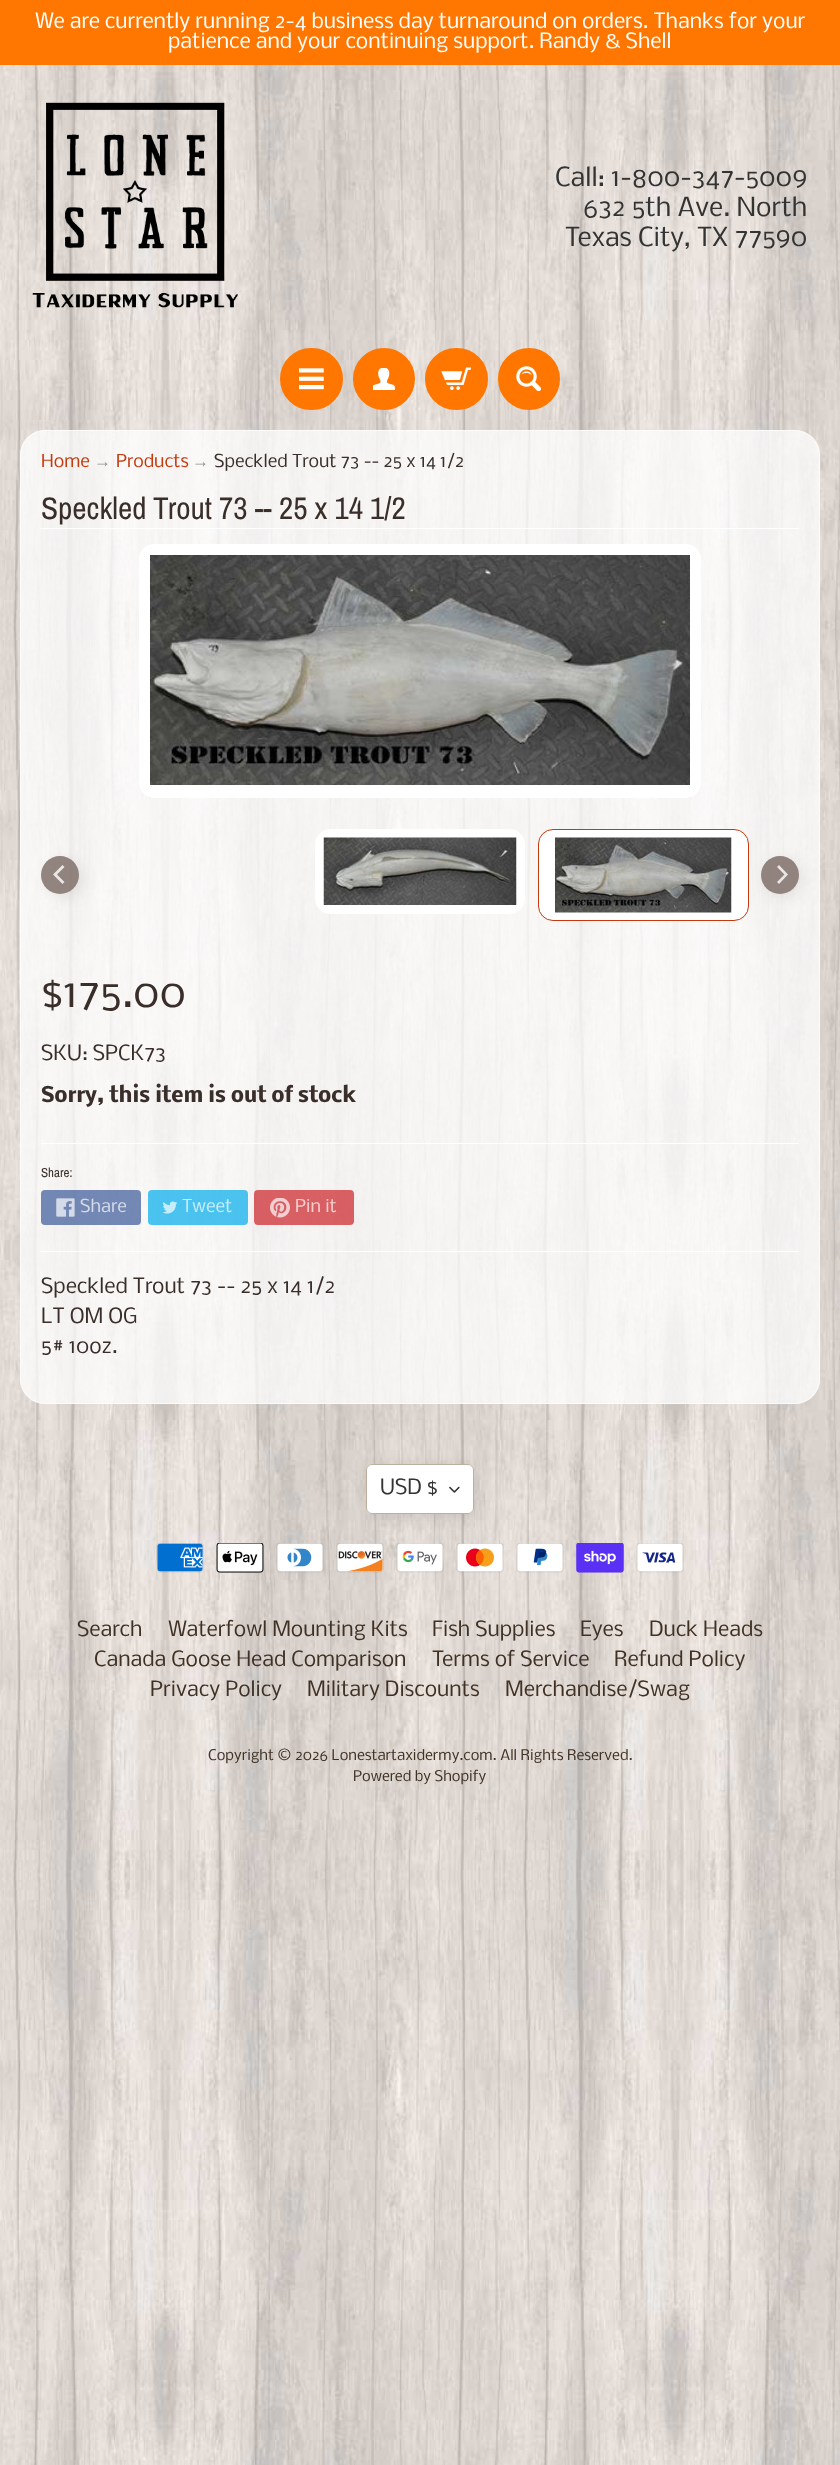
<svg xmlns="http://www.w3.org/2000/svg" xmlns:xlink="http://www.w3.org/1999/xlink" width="840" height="2465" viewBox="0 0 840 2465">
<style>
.cls-1{font:20px Nobile;fill:#ffffff}
.cls-2{font:25px Nobile;fill:#333333}
.cls-3{font:17px Nobile;fill:#c33a0e}
.cls-4{font:17px Liberation Sans;fill:#98918f}
.cls-5{font:17px Nobile;fill:#392e2a}
.cls-6{font:31.25px Archivo Narrow;fill:#392e2a}
.cls-7{font:40px Nobile;fill:#392e2a}
.cls-8{font:20px Nobile;fill:#392e2a}
.cls-9{font:bold 20px Nobile;fill:#392e2a}
.cls-10{font:13px Archivo Narrow;fill:#392e2a}
.cls-11{font:17px Nobile;fill:#d5dbe8}
.cls-12{font:17px Nobile;fill:#c9edfa}
.cls-13{font:17px Nobile;fill:#f3cfd0}
.cls-14{font:20px Nobile;fill:#333333}
.cls-15{font:20px Nobile;fill:#403125}
.cls-16{font:14px Nobile;fill:#403125}
</style>
<defs>
<clipPath id="clip1"><path d="M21 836H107V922H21ZM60 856C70.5 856 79 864.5 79 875C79 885.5 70.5 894 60 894C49.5 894 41 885.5 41 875C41 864.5 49.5 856 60 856Z" clip-rule="evenodd"/></clipPath>
<clipPath id="clip2"><path d="M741 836H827V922H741ZM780 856C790.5 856 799 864.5 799 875C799 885.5 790.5 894 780 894C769.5 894 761 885.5 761 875C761 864.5 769.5 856 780 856Z" clip-rule="evenodd"/></clipPath>
</defs>
<rect width="100%" height="100%" fill="#ffffff"/>
<image xlink:href="image0.png" x="0" y="65" width="840" height="2400"/>
<rect fill="#ff7700" x="0" y="0" width="840" height="65"/>
<image xlink:href="image1.png" x="32" y="102" width="206" height="206"/>
<rect fill="#ff7700" stroke="#ff7700" stroke-width="4" x="282" y="350" width="59" height="58" rx="29"/>
<image xlink:href="image2.png" x="299" y="368" width="25" height="22"/>
<circle fill="#ff7700" stroke="#ff7700" stroke-width="4" cx="384" cy="379" r="29"/>
<image xlink:href="image3.png" x="373" y="368" width="22" height="22"/>
<rect fill="#ff7700" stroke="#ff7700" stroke-width="4" x="427" y="350" width="59" height="58" rx="29"/>
<image xlink:href="image4.png" x="441" y="367" width="30" height="23"/>
<circle fill="#ff7700" stroke="#ff7700" stroke-width="4" cx="529" cy="379" r="29"/>
<image xlink:href="image5.png" x="516" y="366" width="25" height="25"/>
<rect fill="#ffffff" fill-opacity="0.75" x="20" y="430" width="800" height="974" rx="25"/>
<rect fill="none" stroke="#ffffff" stroke-opacity="0.7" x="20.5" y="430.5" width="799" height="973" rx="24.5"/>
<rect fill="#ffffff" x="41" y="528" width="758" height="1"/>
<rect fill="#ffffff" x="139" y="544" width="562" height="254" rx="15"/>
<image xlink:href="image6.png" x="150" y="555" width="540" height="230"/>
<g clip-path="url(#clip1)">
<rect fill="#000000" fill-opacity="0.08" filter="blur(7.5px)" x="45" y="860" width="38" height="38" rx="19"/>
</g>
<circle fill="#786660" fill-opacity="0.8" cx="60" cy="875" r="19"/>
<path fill="#e9e6e5" d="M53 874.5L62.5 884L64.5 882L57 874.5L64.5 867L62.5 865Z"/>
<rect fill="#ffffff" stroke="#ffffff" x="315.5" y="829.5" width="209" height="84" rx="14.5"/>
<image xlink:href="image7.png" x="323" y="837" width="194" height="68"/>
<rect fill="#ffffff" stroke="#c33a0e" x="538.5" y="829.5" width="210" height="91" rx="14.5"/>
<image xlink:href="image8.png" x="555" y="837" width="177" height="76"/>
<g clip-path="url(#clip2)">
<rect fill="#000000" fill-opacity="0.08" filter="blur(7.5px)" x="765" y="860" width="38" height="38" rx="19"/>
</g>
<circle fill="#786660" fill-opacity="0.8" cx="780" cy="875" r="19"/>
<path fill="#e9e6e5" d="M788 874.5L779 865L777 867L784.5 874.5L777 882L779 884Z"/>
<rect fill="#ffffff" x="41" y="1143" width="758" height="1"/>
<rect fill="#3b5998" fill-opacity="0.7" x="41" y="1190" width="100" height="35" rx="4"/>
<image xlink:href="image9.png" x="56" y="1198" width="19" height="19"/>
<rect fill="#00aced" fill-opacity="0.7" x="148" y="1190" width="100" height="35" rx="4"/>
<image xlink:href="image10.png" x="163" y="1201" width="15" height="13"/>
<rect fill="#cc2127" fill-opacity="0.7" x="254" y="1190" width="100" height="35" rx="4"/>
<image xlink:href="image11.png" x="270" y="1198" width="20" height="20"/>
<rect fill="#ffffff" x="41" y="1251" width="758" height="1"/>
<rect fill="#000000" fill-opacity="0.1" filter="blur(7.5px)" x="370" y="1468" width="108" height="50" rx="6"/>
<rect fill="#ffffff" x="366" y="1464" width="108" height="50" rx="6"/>
<image xlink:href="image12.png" x="449" y="1486" width="11" height="7"/>
<rect fill="none" stroke="#bdaf9b" x="366.5" y="1464.5" width="107" height="49" rx="5.5"/>
<image xlink:href="image13.png" x="156" y="1543" width="48" height="30"/>
<image xlink:href="image14.png" x="216" y="1543" width="48" height="30"/>
<image xlink:href="image15.png" x="276" y="1543" width="48" height="30"/>
<image xlink:href="image16.png" x="336" y="1543" width="48" height="30"/>
<image xlink:href="image17.png" x="396" y="1543" width="48" height="30"/>
<image xlink:href="image18.png" x="456" y="1543" width="48" height="30"/>
<image xlink:href="image19.png" x="516" y="1543" width="48" height="30"/>
<image xlink:href="image20.png" x="576" y="1543" width="48" height="30"/>
<image xlink:href="image21.png" x="636" y="1543" width="48" height="30"/>
<text class="cls-1" x="35" y="28">We are currently running 2-4 business day turnaround on orders. Thanks for your</text>
<text class="cls-1" x="168" y="48">patience and your continuing support. Randy &amp; Shell</text>
<text class="cls-2" x="555" y="186">Call: 1-800-347-5009</text>
<text class="cls-2" x="583" y="216">632 5th Ave. North</text>
<text class="cls-2" x="565" y="246">Texas City, TX 77590</text>
<text class="cls-3" x="41" y="467">Home</text>
<text class="cls-4" x="94" y="467">→</text>
<text class="cls-3" x="116" y="467">Products</text>
<text class="cls-4" x="192" y="467">→</text>
<text class="cls-5" x="214" y="467">Speckled Trout 73 -- 25 x 14 1/2</text>
<text class="cls-6" x="41" y="519">Speckled Trout 73 -- 25 x 14 1/2</text>
<text class="cls-7" x="41" y="1007">$175.00</text>
<text class="cls-8" x="41" y="1060">SKU: SPCK73</text>
<text class="cls-9" x="41" y="1102">Sorry, this item is out of stock</text>
<text class="cls-10" x="41" y="1177">Share:</text>
<text class="cls-11" x="80" y="1212">Share</text>
<text class="cls-12" x="182" y="1212">Tweet</text>
<text class="cls-13" x="295" y="1212">Pin it</text>
<text class="cls-8"><tspan x="41" y="1293">Speckled Trout 73 -- 25 x 14 1/2</tspan><tspan x="41" y="1323">LT OM OG</tspan><tspan x="41" y="1353">5# 10oz.</tspan></text>
<text class="cls-14" x="380" y="1494">USD $</text>
<text class="cls-15" x="77" y="1636">Search</text>
<text class="cls-15" x="168" y="1636">Waterfowl Mounting Kits</text>
<text class="cls-15" x="432" y="1636">Fish Supplies</text>
<text class="cls-15" x="580" y="1636">Eyes</text>
<text class="cls-15" x="649" y="1636">Duck Heads</text>
<text class="cls-15" x="94" y="1666">Canada Goose Head Comparison</text>
<text class="cls-15" x="432" y="1666">Terms of Service</text>
<text class="cls-15" x="614" y="1666">Refund Policy</text>
<text class="cls-15" x="150" y="1696">Privacy Policy</text>
<text class="cls-15" x="307" y="1696">Military Discounts</text>
<text class="cls-15" x="505" y="1696">Merchandise/Swag</text>
<text class="cls-16" x="208" y="1760">Copyright © 2026 Lonestartaxidermy.com. All Rights Reserved.</text>
<text class="cls-16" x="353" y="1781">Powered by Shopify</text>
</svg>
